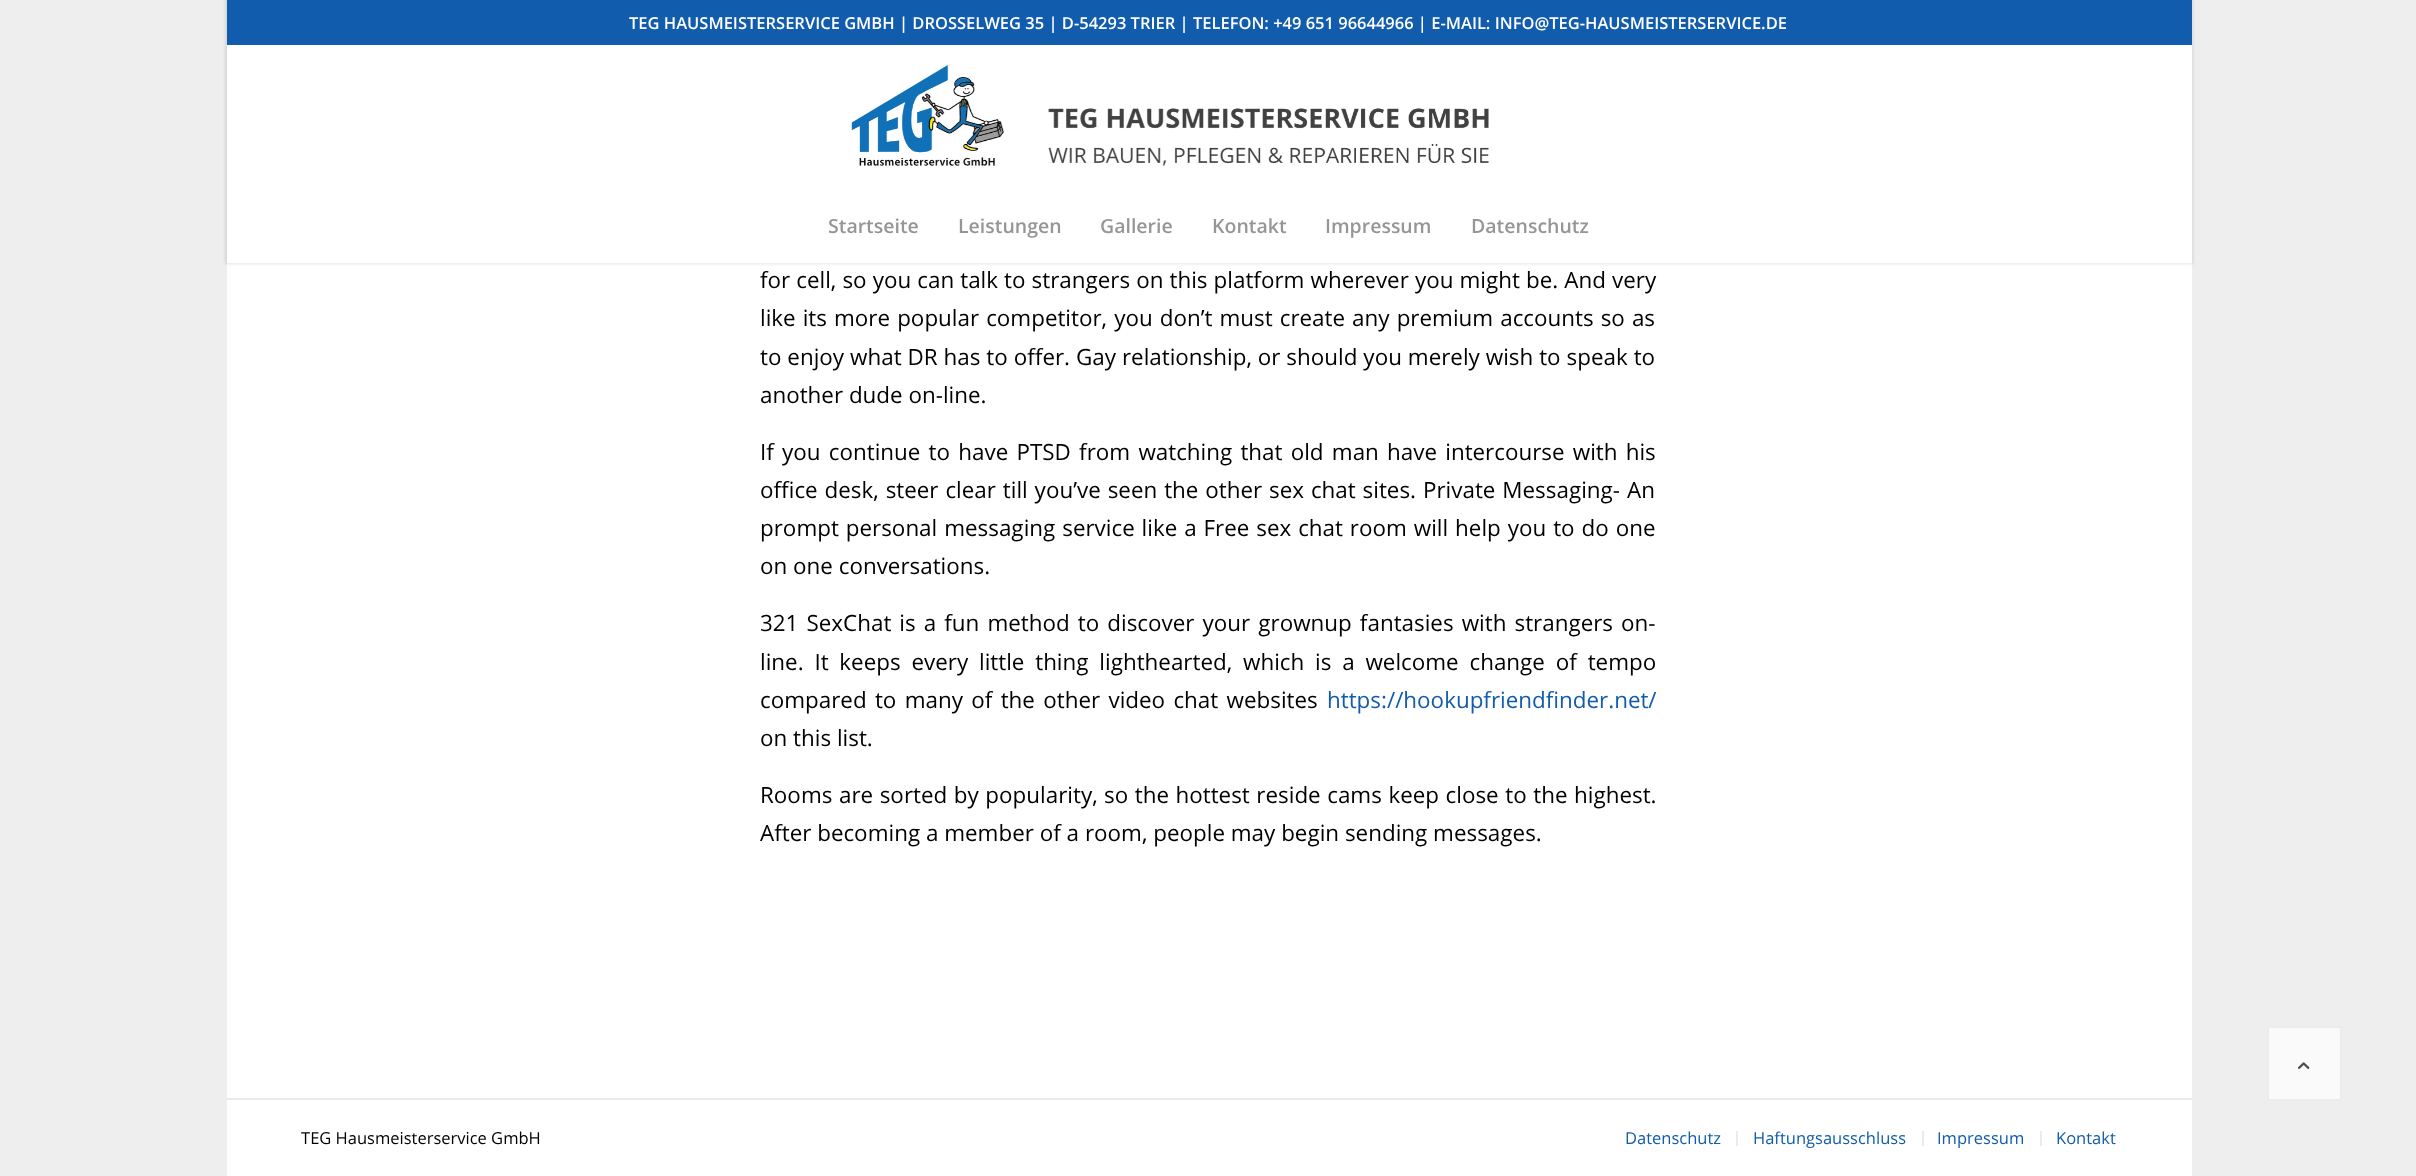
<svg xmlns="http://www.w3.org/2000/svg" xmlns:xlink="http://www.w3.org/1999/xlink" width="2416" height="1176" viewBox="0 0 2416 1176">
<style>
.cls-1{font:600 16.5px Open Sans;fill:#ffffff}
.cls-2{font:600 19.5px Open Sans;fill:#969696}
.cls-3{font:22.4px Open Sans;fill:#000000}
.cls-4{font:22.4px Open Sans;fill:#115cac}
.cls-5{font:16.5px Open Sans;fill:#000000}
.cls-6{font:16.5px Open Sans;fill:#115cac}
</style>
<rect width="100%" height="100%" fill="#eeeeee"/>
<rect fill="#ffffff" x="227" y="263" width="1965" height="913"/>
<rect fill="#000000" fill-opacity="0.1" filter="blur(1.5px)" x="225" y="-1" width="1968" height="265"/>
<rect fill="#115cac" x="227" y="0" width="1965" height="45"/>
<rect fill="#ffffff" x="227" y="45" width="1965" height="218"/>
<image xlink:href="image0.png" x="851" y="65" width="638" height="101"/>
<rect fill="#ebebeb" x="227" y="1098" width="1965" height="2"/>
<rect fill="#ebebeb" x="1736" y="1131" width="2" height="15"/>
<rect fill="#ebebeb" x="1922" y="1131" width="2" height="15"/>
<rect fill="#ebebeb" x="2040" y="1131" width="2" height="15"/>
<rect fill="#fafafa" stroke="#ececec" stroke-width="2" x="2268" y="1027" width="73" height="73" rx="2"/>
<image xlink:href="image1.png" x="2298" y="1062" width="12" height="7"/>
<text class="cls-1" x="629" y="29">TEG HAUSMEISTERSERVICE GMBH | DROSSELWEG 35 | D-54293 TRIER | TELEFON: +49 651 96644966 | E-MAIL: INFO@TEG-HAUSMEISTERSERVICE.DE</text>
<text class="cls-2" x="828" y="233">Startseite</text>
<text class="cls-2" x="958" y="233">Leistungen</text>
<text class="cls-2" x="1100" y="233">Gallerie</text>
<text class="cls-2" x="1212" y="233">Kontakt</text>
<text class="cls-2" x="1325" y="233">Impressum</text>
<text class="cls-2" x="1471" y="233">Datenschutz</text>
<text class="cls-3"><tspan x="760" y="288" word-spacing="0.25">for cell, so you can talk to strangers on this platform wherever you might be. And very</tspan><tspan x="760" y="326" word-spacing="1.25">like its more popular competitor, you don’t must create any premium accounts so as</tspan><tspan x="760" y="365" word-spacing="0.1">to enjoy what DR has to offer. Gay relationship, or should you merely wish to speak to</tspan><tspan x="760" y="403">another dude on-line.</tspan></text>
<text class="cls-3"><tspan x="760" y="460" word-spacing="2.4">If you continue to have PTSD from watching that old man have intercourse with his</tspan><tspan x="760" y="498" word-spacing="1.1">office desk, steer clear till you’ve seen the other sex chat sites. Private Messaging- An</tspan><tspan x="760" y="536" word-spacing="1.1">prompt personal messaging service like a Free sex chat room will help you to do one</tspan><tspan x="760" y="574">on one conversations.</tspan></text>
<text class="cls-3"><tspan x="760" y="631" word-spacing="2.25">321 SexChat is a fun method to discover your grownup fantasies with strangers on-</tspan><tspan x="760" y="670" word-spacing="5">line. It keeps every little thing lighthearted, which is a welcome change of tempo</tspan><tspan x="760" y="708" word-spacing="2.5">compared to many of the other video chat websites</tspan></text>
<text class="cls-4" x="1327" y="708">https://hookupfriendfinder.net/</text>
<text class="cls-3" x="760" y="746">on this list.</text>
<text class="cls-3" x="760" y="803" word-spacing="0.75">Rooms are sorted by popularity,</text>
<text class="cls-3" x="1104" y="803" word-spacing="0.75">so the hottest reside cams keep close to the highest.</text>
<text class="cls-3" x="760" y="841">After becoming a member of a room, people may begin sending messages.</text>
<text class="cls-5" x="301" y="1144">TEG Hausmeisterservice GmbH</text>
<text class="cls-6" x="1625" y="1144">Datenschutz</text>
<text class="cls-6" x="1753" y="1144">Haftungsausschluss</text>
<text class="cls-6" x="1937" y="1144">Impressum</text>
<text class="cls-6" x="2056" y="1144">Kontakt</text>
</svg>
